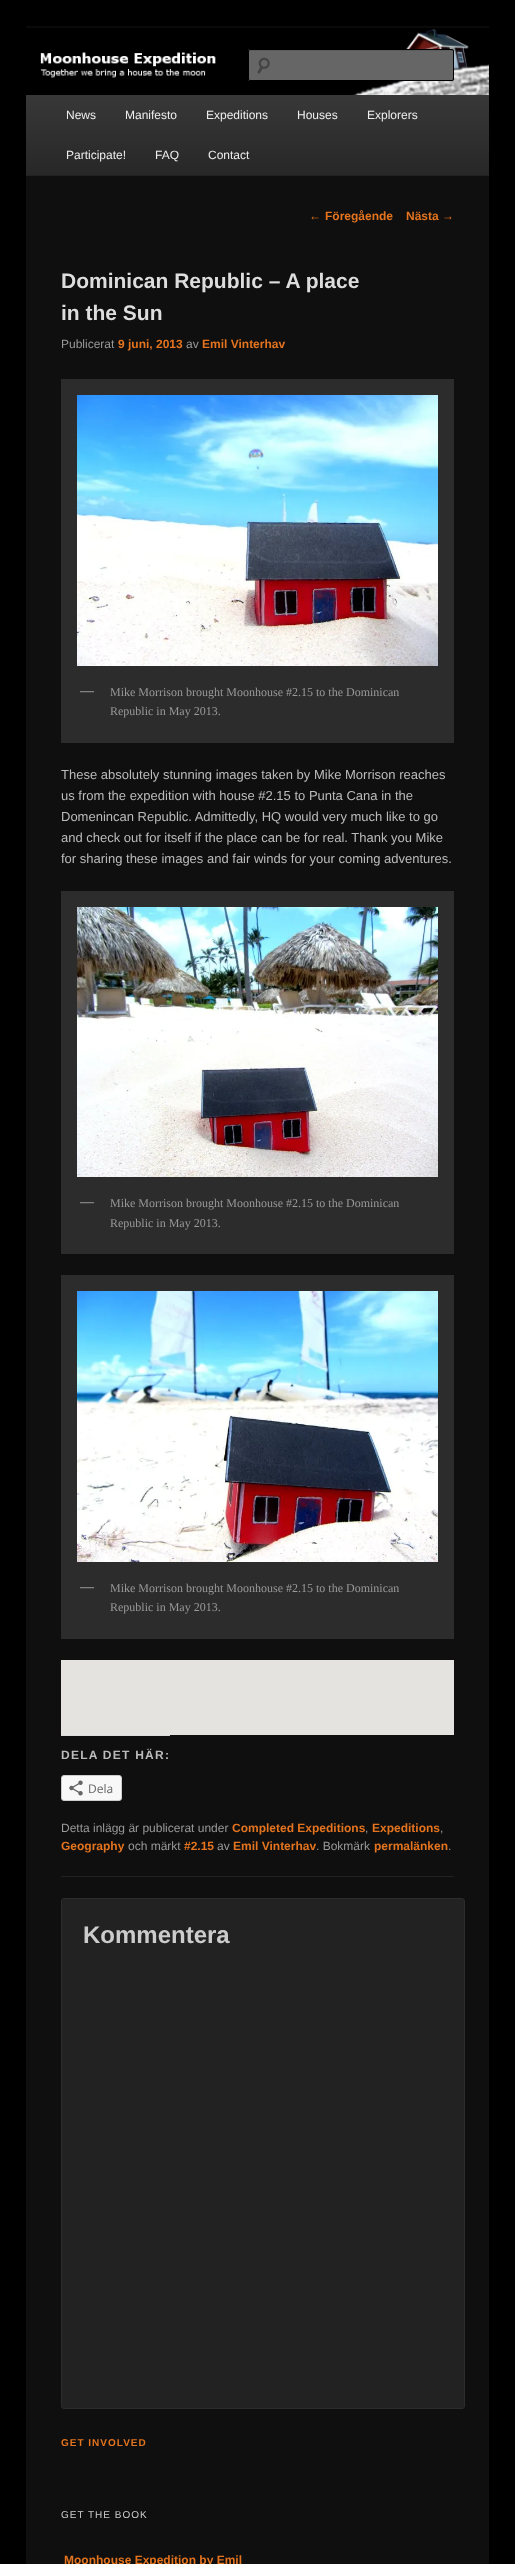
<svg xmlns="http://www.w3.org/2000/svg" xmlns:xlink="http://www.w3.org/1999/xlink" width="515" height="2564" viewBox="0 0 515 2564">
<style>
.cls-1{font:12px Liberation Sans;fill:#eeeeee}
.cls-2{font:12px Liberation Sans;fill:#e4741f}
.cls-3{font:bold 12px Liberation Sans;fill:#e4741f}
.cls-4{font:bold 21px Liberation Sans;fill:#dddddd}
.cls-5{font:12px Liberation Sans;fill:#999999}
.cls-6{font:bold 14px Liberation Serif;fill:#999999}
.cls-7{font:12px Liberation Serif;fill:#999999}
.cls-8{font:13px Liberation Sans;fill:#bbbbbb}
.cls-9{font:bold 12px Liberation Sans;letter-spacing:1.25px;fill:#bbbbbb}
.cls-10{font:12px Open Sans;fill:#656565}
.cls-11{font:bold 24px Liberation Sans;fill:#cccccc}
.cls-12{font:bold 10px Liberation Sans;letter-spacing:1px;fill:#e4741f}
.cls-13{font:10px Liberation Sans;letter-spacing:1px;fill:#cccccc}
</style>
<defs>
<linearGradient id="g1" gradientUnits="userSpaceOnUse" x1="258" y1="95" x2="258" y2="175"><stop offset="0" stop-color="#383838"/><stop offset="1" stop-color="#272727"/></linearGradient>
</defs>
<rect width="100%" height="100%" fill="#000000"/>
<rect fill="#0f0f0f" x="26" y="176" width="463" height="2388"/>
<rect fill="#0a0a0a" x="26" y="26" width="463" height="2"/>
<image xlink:href="image0.png" x="26" y="28" width="463" height="67"/>
<rect fill="#666666" x="248" y="49" width="206" height="32" rx="2"/>
<image xlink:href="image1.png" x="257" y="57" width="13" height="17"/>
<path fill="#5c5c5c" d="M250 51H453V52V50H452H250C249 50 249 51 249 52C249 51 249 51 250 51Z"/>
<rect fill="none" stroke="#000000" x="248.5" y="49.5" width="205" height="31" rx="1.5"/>
<rect fill="url(#g1)" x="26" y="95" width="463" height="80"/>
<rect fill="#222222" x="26" y="175" width="463" height="1"/>
<rect fill="#222222" x="61" y="1876" width="393" height="1"/>
<rect fill="#2c2c2c" x="61" y="379" width="393" height="364"/>
<image xlink:href="image2.png" x="77" y="395" width="361" height="271"/>
<rect fill="#2c2c2c" x="61" y="891" width="393" height="363"/>
<image xlink:href="image3.png" x="77" y="907" width="361" height="270"/>
<rect fill="#2c2c2c" x="61" y="1275" width="393" height="364"/>
<image xlink:href="image4.png" x="77" y="1291" width="361" height="271"/>
<rect fill="#e5e3df" x="61" y="1660" width="393" height="75"/>
<rect fill="#dcdcde" x="61" y="1735" width="109" height="1"/>
<rect fill="#f8f8f8" stroke="#cccccc" x="61.5" y="1775.5" width="60" height="25" rx="2.5"/>
<image xlink:href="image5.png" x="69" y="1780" width="14" height="16"/>
<rect fill="#222222" stroke="#2c2c2c" x="61.5" y="1898.5" width="403" height="510" rx="2.5"/>
<text class="cls-1" x="66" y="119">News</text>
<text class="cls-1" x="125" y="119">Manifesto</text>
<text class="cls-1" x="206" y="119">Expeditions</text>
<text class="cls-1" x="297" y="119">Houses</text>
<text class="cls-1" x="367" y="119">Explorers</text>
<text class="cls-1" x="66" y="159">Participate!</text>
<text class="cls-1" x="155" y="159">FAQ</text>
<text class="cls-1" x="208" y="159">Contact</text>
<text class="cls-2" x="309" y="220">←</text>
<text class="cls-3" x="325" y="220">Föregående</text>
<text class="cls-3" x="406" y="220">Nästa</text>
<text class="cls-2" x="442" y="220">→</text>
<text class="cls-4"><tspan x="61" y="288">Dominican Republic – A place</tspan><tspan x="61" y="320">in the Sun</tspan></text>
<text class="cls-5" x="61" y="348">Publicerat</text>
<text class="cls-3" x="118" y="348">9 juni, 2013</text>
<text class="cls-5" x="186" y="348">av</text>
<text class="cls-3" x="202" y="348">Emil Vinterhav</text>
<text class="cls-6" x="80" y="695">—</text>
<text class="cls-7"><tspan x="110" y="696">Mike Morrison brought Moonhouse #2.15 to the Dominican</tspan><tspan x="110" y="715">Republic in May 2013.</tspan></text>
<text class="cls-8"><tspan x="61" y="779">These absolutely stunning images taken by Mike Morrison reaches</tspan><tspan x="61" y="800">us from the expedition with house #2.15 to Punta Cana in the</tspan><tspan x="61" y="821">Domenincan Republic. Admittedly, HQ would very much like to go</tspan><tspan x="61" y="842">and check out for itself if the place can be for real. Thank you Mike</tspan><tspan x="61" y="863">for sharing these images and fair winds for your coming adventures.</tspan></text>
<text class="cls-6" x="80" y="1206">—</text>
<text class="cls-7"><tspan x="110" y="1207">Mike Morrison brought Moonhouse #2.15 to the Dominican</tspan><tspan x="110" y="1227">Republic in May 2013.</tspan></text>
<text class="cls-6" x="80" y="1591">—</text>
<text class="cls-7"><tspan x="110" y="1592">Mike Morrison brought Moonhouse #2.15 to the Dominican</tspan><tspan x="110" y="1611">Republic in May 2013.</tspan></text>
<text class="cls-9" x="61" y="1759">DELA DET HÄR:</text>
<text class="cls-10" x="88" y="1793">Dela</text>
<text class="cls-5" x="61" y="1832">Detta inlägg är publicerat under</text>
<text class="cls-3" x="232" y="1832">Completed Expeditions</text>
<text class="cls-5" x="365" y="1832">,</text>
<text class="cls-3" x="372" y="1832">Expeditions</text>
<text class="cls-5" x="440" y="1832">,</text>
<text class="cls-3" x="61" y="1850">Geography</text>
<text class="cls-5" x="128" y="1850">och märkt</text>
<text class="cls-3" x="184" y="1850">#2.15</text>
<text class="cls-5" x="217" y="1850">av</text>
<text class="cls-3" x="233" y="1850">Emil Vinterhav</text>
<text class="cls-5" x="316" y="1850">. Bokmärk</text>
<text class="cls-3" x="374" y="1850">permalänken</text>
<text class="cls-5" x="448" y="1850">.</text>
<text class="cls-11" x="83" y="1943">Kommentera</text>
<text class="cls-12" x="61" y="2446">GET INVOLVED</text>
<text class="cls-13" x="61" y="2518">GET THE BOOK</text>
<text class="cls-3" x="64" y="2564">Moonhouse Expedition by Emil</text>
</svg>
